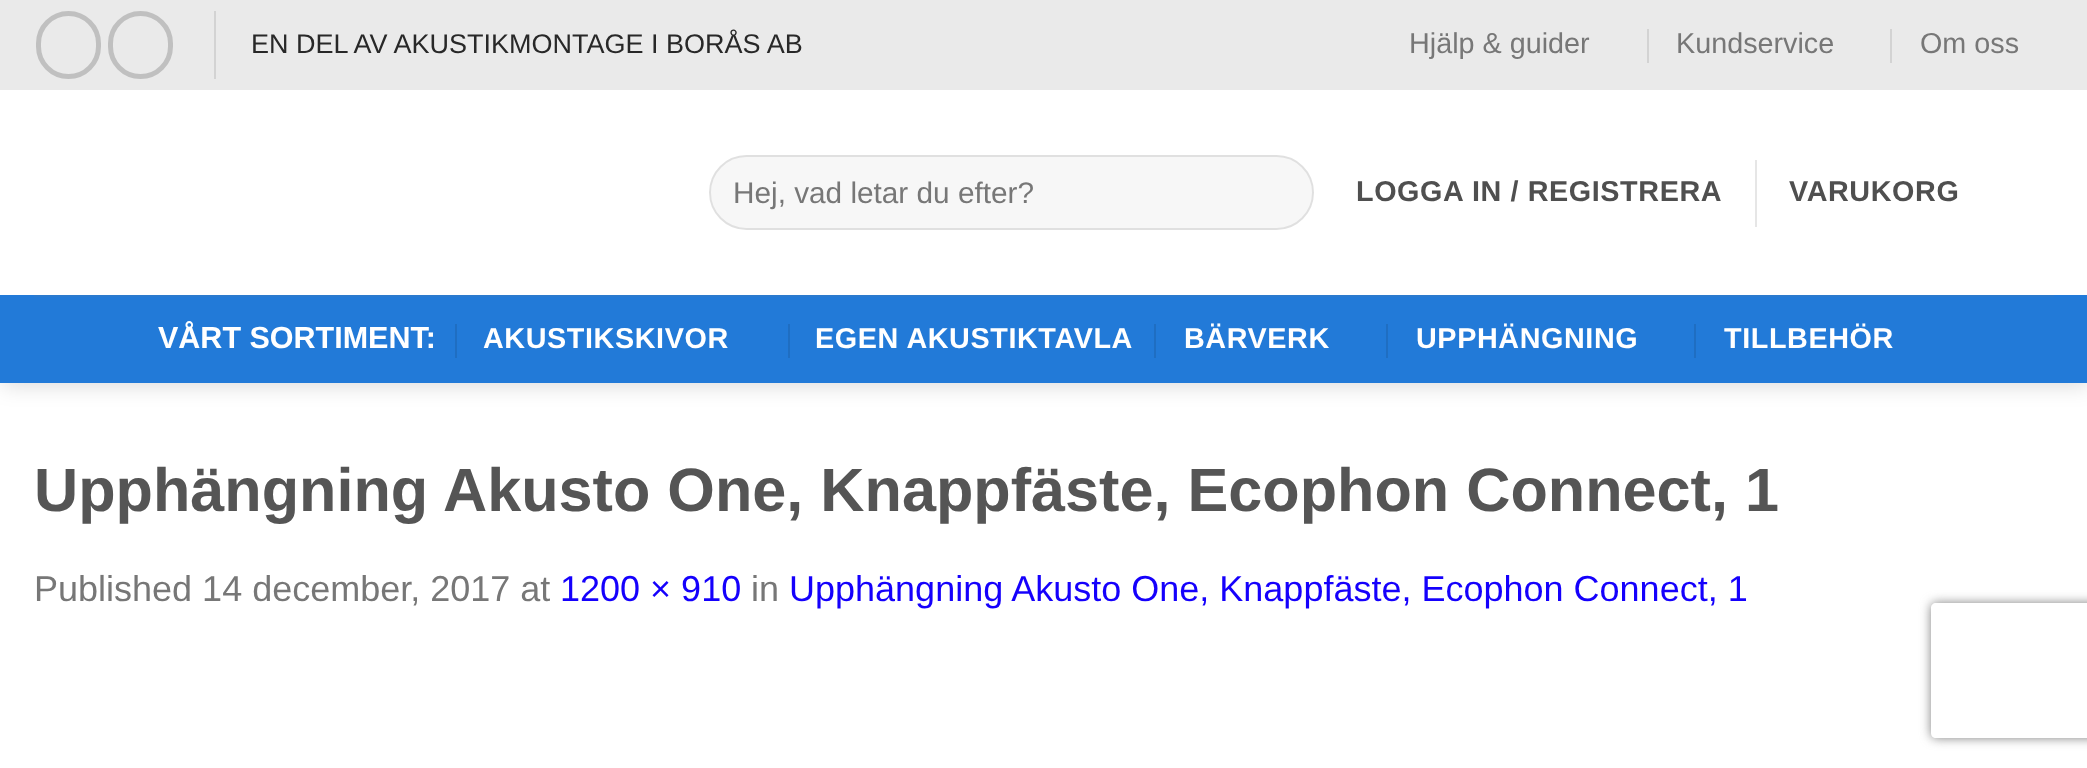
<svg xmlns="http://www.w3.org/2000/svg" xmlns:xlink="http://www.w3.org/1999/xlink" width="2087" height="768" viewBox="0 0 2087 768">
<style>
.cls-1{font:27px Liberation Sans;fill:#282828}
.cls-2{font:28.75px Liberation Sans;fill:#777777}
.cls-3{font:29.75px Liberation Sans;fill:#777777}
.cls-4{font:bold 28.75px Liberation Sans;letter-spacing:0.6px;fill:#4f4f4f}
.cls-5{font:bold 30.5px Liberation Sans;fill:#ffffff}
.cls-6{font:bold 28.75px Liberation Sans;letter-spacing:0.6px;fill:#ffffff}
.cls-7{font:bold 61.2px Liberation Sans;fill:#555555}
.cls-8{font:36px Liberation Sans;fill:#777777}
.cls-9{font:36px Liberation Sans;fill:#1500fc}
</style>
<defs>
<clipPath id="clip1"><path d="M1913 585H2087V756H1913ZM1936 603H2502C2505 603 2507 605 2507 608V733C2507 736 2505 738 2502 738H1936C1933 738 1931 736 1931 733V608C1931 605 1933 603 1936 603Z" clip-rule="evenodd"/></clipPath>
</defs>
<rect width="100%" height="100%" fill="#ffffff"/>
<rect fill="#000000" fill-opacity="0.15" filter="blur(11px)" x="2" y="2" width="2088" height="383"/>
<rect fill="#eaeaea" x="0" y="0" width="2087" height="90"/>
<rect fill="none" stroke="#c0c0c0" stroke-width="5" x="38.5" y="13.5" width="60" height="63" rx="30"/>
<rect fill="none" stroke="#c0c0c0" stroke-width="5" x="110.5" y="13.5" width="60" height="63" rx="30"/>
<rect fill="#d3d3d3" x="214" y="11" width="2" height="68"/>
<rect fill="#d3d3d3" x="1647" y="29" width="2" height="34"/>
<rect fill="#d3d3d3" x="1890" y="29" width="2" height="34"/>
<rect fill="#ffffff" x="0" y="90" width="2087" height="205"/>
<rect fill="#f7f7f7" x="709" y="155" width="605" height="75" rx="37.5"/>
<rect fill="none" stroke="#000000" stroke-opacity="0.09" stroke-width="2" x="710" y="156" width="603" height="73" rx="36.5"/>
<rect fill="#e6e6e6" x="1755" y="160" width="2" height="67"/>
<rect fill="#227ad8" x="0" y="295" width="2087" height="88"/>
<rect fill="#2b7ace" x="34" y="295" width="2020" height="2"/>
<rect fill="#1f6ec2" x="455" y="324" width="2" height="34"/>
<rect fill="#1f6ec2" x="788" y="324" width="2" height="34"/>
<rect fill="#1f6ec2" x="1154" y="324" width="2" height="34"/>
<rect fill="#1f6ec2" x="1386" y="324" width="2" height="34"/>
<rect fill="#1f6ec2" x="1694" y="324" width="2" height="34"/>
<g clip-path="url(#clip1)">
<rect fill="#808080" filter="blur(5.5px)" x="1931" y="603" width="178" height="135" rx="5"/>
</g>
<text class="cls-1" x="251" y="53">EN DEL AV AKUSTIKMONTAGE I BORÅS AB</text>
<text class="cls-2" x="1409" y="53">Hjälp &amp; guider</text>
<text class="cls-2" x="1676" y="53">Kundservice</text>
<text class="cls-2" x="1920" y="53">Om oss</text>
<text class="cls-3" x="733" y="203">Hej, vad letar du efter?</text>
<text class="cls-4" x="1356" y="201">LOGGA IN / REGISTRERA</text>
<text class="cls-4" x="1789" y="201">VARUKORG</text>
<text class="cls-5" x="158" y="348">VÅRT SORTIMENT:</text>
<text class="cls-6" x="483" y="348">AKUSTIKSKIVOR</text>
<text class="cls-6" x="815" y="348">EGEN AKUSTIKTAVLA</text>
<text class="cls-6" x="1184" y="348">BÄRVERK</text>
<text class="cls-6" x="1416" y="348">UPPHÄNGNING</text>
<text class="cls-6" x="1724" y="348">TILLBEHÖR</text>
<text class="cls-7" x="34" y="511">Upphängning Akusto One, Knappfäste, Ecophon Connect, 1</text>
<text class="cls-8" x="34" y="601">Published 14 december, 2017 at</text>
<text class="cls-9" x="560" y="601">1200 × 910</text>
<text class="cls-8" x="751" y="601">in</text>
<text class="cls-9" x="789" y="601">Upphängning Akusto One, Knappfäste, Ecophon Connect, 1</text>
</svg>
